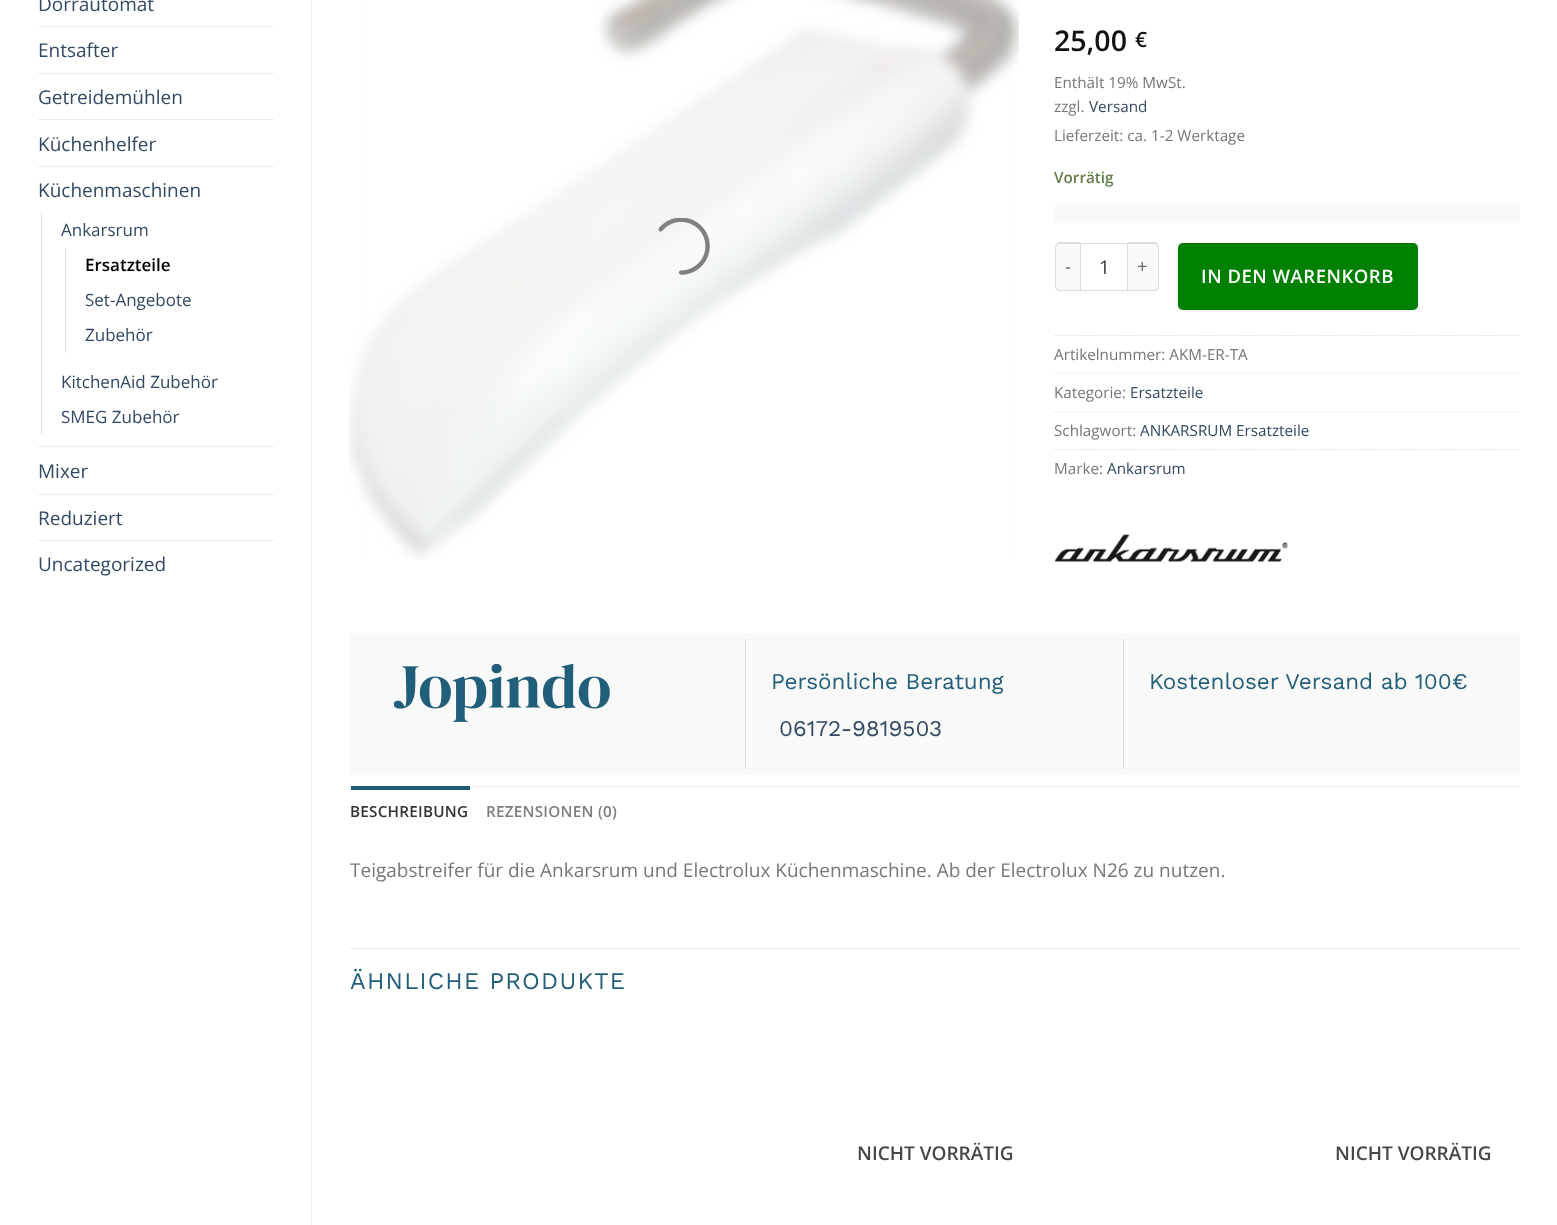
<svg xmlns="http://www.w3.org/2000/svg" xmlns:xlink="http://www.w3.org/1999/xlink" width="1557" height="1225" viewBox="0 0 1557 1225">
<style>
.cls-1{font:19px Open Sans;fill:#334862}
.cls-2{font:17px Open Sans;fill:#334862}
.cls-3{font:600 17px Open Sans;fill:#000000}
.cls-4{font:600 28.5px Open Sans;fill:#111111}
.cls-5{font:600 21px Open Sans;fill:#111111}
.cls-6{font:15.25px Open Sans;fill:#777777}
.cls-7{font:15.25px Open Sans;fill:#334862}
.cls-8{font:600 15.25px Open Sans;fill:#627d47}
.cls-9{font:18.5px Open Sans;letter-spacing:0.5px;fill:#666666}
.cls-10{font:19px Open Sans;fill:#333333}
.cls-11{font:600 18.5px Open Sans;letter-spacing:0.5px;fill:#ffffff}
.cls-12{font:22.5px Work Sans;fill:#215e79}
.cls-13{font:22.5px Work Sans;fill:#334862}
.cls-14{font:600 15.25px Open Sans;letter-spacing:0.25px;fill:#333333}
.cls-15{font:600 15.25px Open Sans;letter-spacing:0.25px;fill:#7d7d7d}
.cls-16{font:19px Open Sans;fill:#777777}
.cls-17{font:23.75px Work Sans;letter-spacing:1.2px;fill:#215e79}
.cls-18{font:600 19px Open Sans;fill:#474747}
</style>
<rect width="100%" height="100%" fill="#ffffff"/>
<rect fill="#ececec" x="38" y="26" width="236" height="1"/>
<rect fill="#ececec" x="38" y="73" width="236" height="1"/>
<rect fill="#ececec" x="38" y="119" width="236" height="1"/>
<rect fill="#ececec" x="38" y="166" width="236" height="1"/>
<rect fill="#dddddd" x="41" y="213" width="1" height="221"/>
<rect fill="#dddddd" x="65" y="248" width="1" height="105"/>
<rect fill="#ececec" x="38" y="446" width="236" height="1"/>
<rect fill="#ececec" x="38" y="494" width="236" height="1"/>
<rect fill="#ececec" x="38" y="540" width="236" height="1"/>
<rect fill="#ececec" x="311" y="0" width="1" height="1225"/>
<image xlink:href="image0.png" x="349" y="0" width="670" height="560"/>
<image xlink:href="image1.png" x="658" y="218" width="52" height="57"/>
<rect fill="#f9f9f9" x="1055" y="203" width="465" height="20"/>
<path fill="#f9f9f9" d="M1060 243H1080V291H1060C1057 291 1055 289 1055 286V248C1055 245 1057 243 1060 243Z"/>
<path fill="#dddddd" fill-rule="evenodd" d="M1060 242H1080V291H1060C1057 291 1055 289 1055 286V248C1055 245 1057 242 1060 242ZM1060 244H1080V290H1060C1058 290 1056 288 1056 286V248C1056 245 1058 244 1060 244Z"/>
<rect fill="none" stroke="#dddddd" x="1080.5" y="243.5" width="47" height="47"/>
<path fill="#f9f9f9" d="M1128 243H1154C1157 243 1159 245 1159 248V286C1159 289 1157 291 1154 291H1128Z"/>
<path fill="#dddddd" fill-rule="evenodd" d="M1128 242H1154C1157 242 1159 245 1159 248V286C1159 289 1157 291 1154 291H1128ZM1128 244H1154C1156 244 1158 245 1158 248V286C1158 288 1156 290 1154 290H1128Z"/>
<rect fill="#008000" x="1178" y="243" width="240" height="67" rx="5"/>
<rect fill="none" stroke="#000000" stroke-opacity="0.05" x="1178.5" y="243.5" width="239" height="66"/>
<path fill="none" stroke="#dddddd" stroke-width="1.2" stroke-dasharray="1.25 1.25" d="M1055 335.5H1520"/>
<path fill="none" stroke="#dddddd" stroke-width="1.2" stroke-dasharray="1.25 1.25" d="M1055 373H1520"/>
<path fill="none" stroke="#dddddd" stroke-width="1.2" stroke-dasharray="1.25 1.25" d="M1055 412H1520"/>
<path fill="none" stroke="#dddddd" stroke-width="1.2" stroke-dasharray="1.25 1.25" d="M1055 449.5H1520"/>
<image xlink:href="image2.png" x="1055" y="534" width="233" height="28"/>
<rect fill="#f9f9f9" x="350" y="633" width="1170" height="142"/>
<image xlink:href="image3.png" x="394" y="664" width="216" height="58"/>
<rect fill="#dddddd" x="745" y="639" width="1" height="130"/>
<rect fill="#dddddd" x="1123" y="639" width="1" height="130"/>
<rect fill="#ececec" x="350" y="786" width="1170" height="1"/>
<rect fill="#215e79" x="351" y="786" width="119" height="4"/>
<rect fill="#ececec" x="350" y="948" width="1170" height="1"/>
<text class="cls-1" x="38" y="11">Dörrautomat</text>
<text class="cls-1" x="38" y="57">Entsafter</text>
<text class="cls-1" x="38" y="104">Getreidemühlen</text>
<text class="cls-1" x="38" y="151">Küchenhelfer</text>
<text class="cls-1" x="38" y="197">Küchenmaschinen</text>
<text class="cls-2" x="61" y="236">Ankarsrum</text>
<text class="cls-3" x="85" y="271">Ersatzteile</text>
<text class="cls-2" x="85" y="306">Set-Angebote</text>
<text class="cls-2" x="85" y="341">Zubehör</text>
<text class="cls-2" x="61" y="388">KitchenAid Zubehör</text>
<text class="cls-2" x="61" y="423">SMEG Zubehör</text>
<text class="cls-1" x="38" y="478">Mixer</text>
<text class="cls-1" x="38" y="525">Reduziert</text>
<text class="cls-1" x="38" y="571">Uncategorized</text>
<text class="cls-4" x="1054" y="51">25,00</text>
<text class="cls-5" x="1135" y="47">€</text>
<text class="cls-6"><tspan x="1054" y="88">Enthält 19% MwSt.</tspan><tspan x="1054" y="112">zzgl.</tspan></text>
<text class="cls-7" x="1089" y="112">Versand</text>
<text class="cls-6" x="1054" y="141">Lieferzeit: ca. 1-2 Werktage</text>
<text class="cls-8" x="1054" y="183">Vorrätig</text>
<text class="cls-9" x="1065" y="273">-</text>
<text class="cls-10" x="1099" y="274">1</text>
<text class="cls-9" x="1137" y="273">+</text>
<text class="cls-11" x="1201" y="283">IN DEN WARENKORB</text>
<text class="cls-6" x="1054" y="360">Artikelnummer: AKM-ER-TA</text>
<text class="cls-6" x="1054" y="398">Kategorie:</text>
<text class="cls-7" x="1130" y="398">Ersatzteile</text>
<text class="cls-6" x="1054" y="436">Schlagwort:</text>
<text class="cls-7" x="1140" y="436">ANKARSRUM Ersatzteile</text>
<text class="cls-6" x="1054" y="474">Marke:</text>
<text class="cls-7" x="1107" y="474">Ankarsrum</text>
<text class="cls-12" x="771" y="689">Persönliche Beratung</text>
<text class="cls-13" x="779" y="736">06172-9819503</text>
<text class="cls-12" x="1149" y="689">Kostenloser Versand ab 100€</text>
<text class="cls-14" x="350" y="817">BESCHREIBUNG</text>
<text class="cls-15" x="486" y="817">REZENSIONEN (0)</text>
<text class="cls-16" x="350" y="877">Teigabstreifer für die Ankarsrum und Electrolux Küchenmaschine. Ab der Electrolux N26 zu nutzen.</text>
<text class="cls-17" x="350" y="989">ÄHNLICHE PRODUKTE</text>
<text class="cls-18" x="857" y="1160">NICHT VORRÄTIG</text>
<text class="cls-18" x="1335" y="1160">NICHT VORRÄTIG</text>
</svg>
